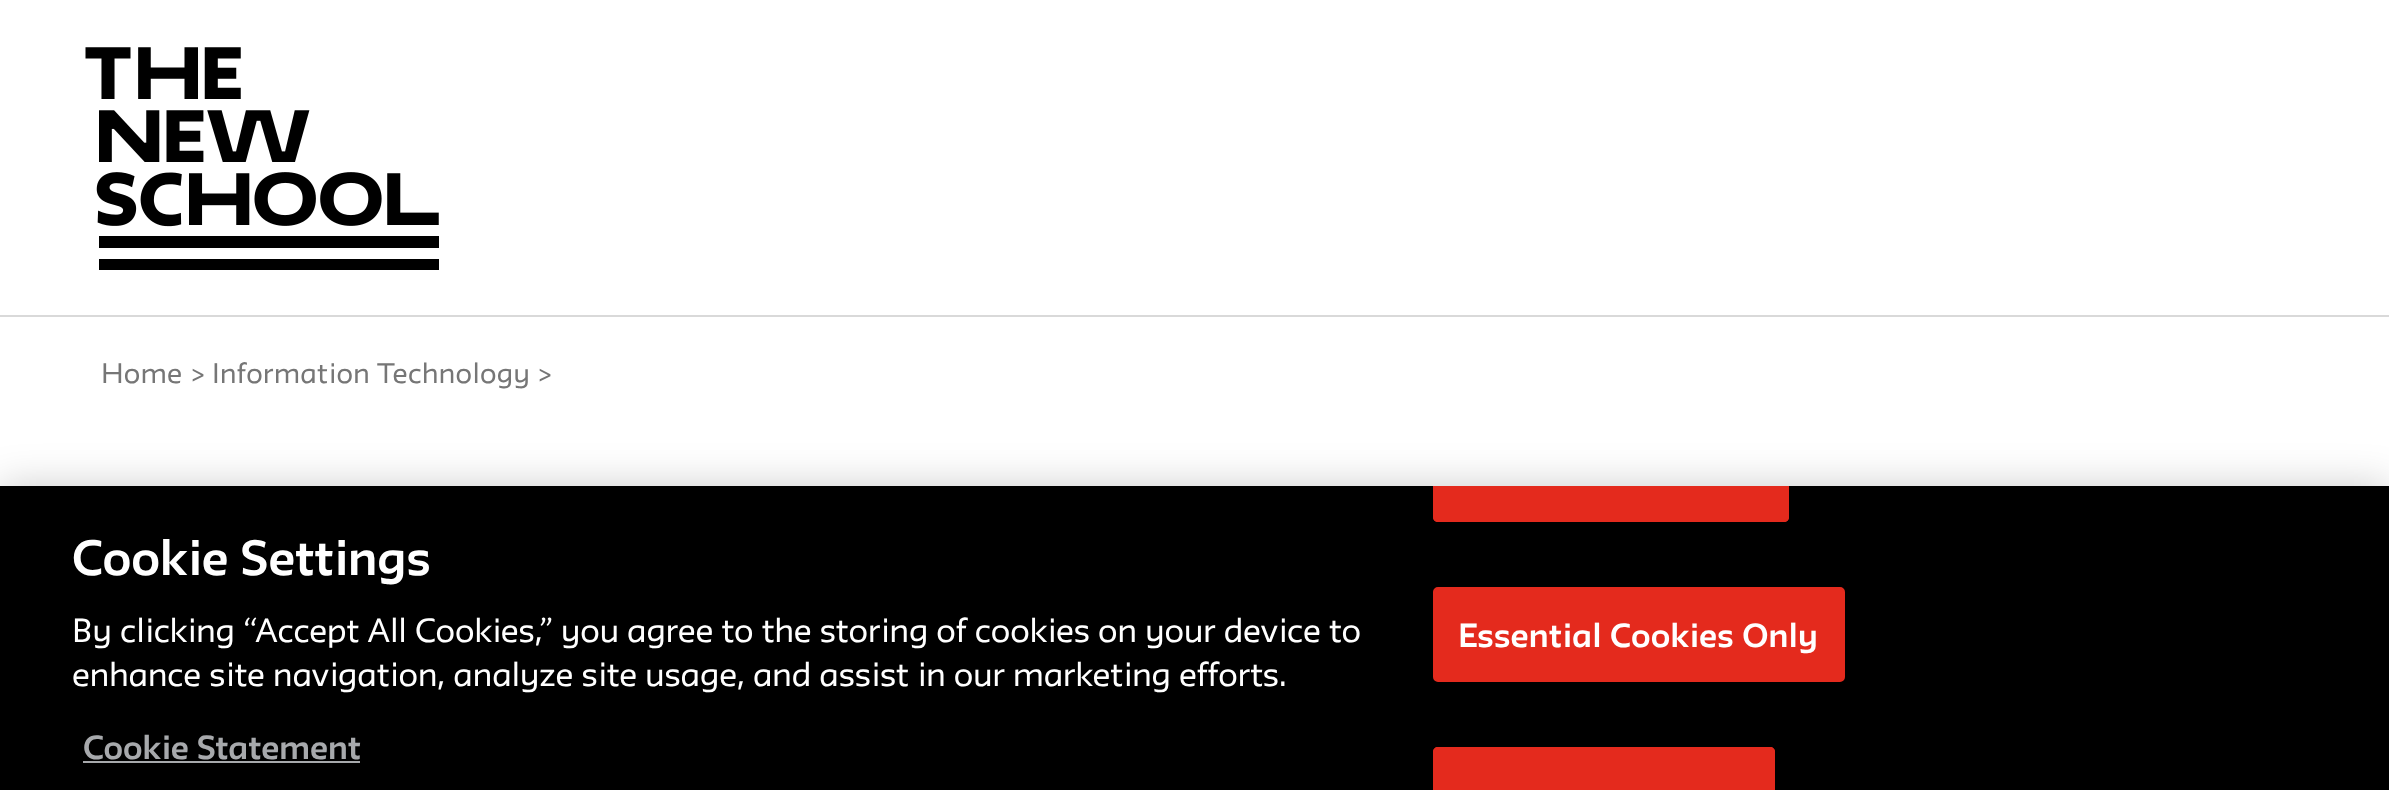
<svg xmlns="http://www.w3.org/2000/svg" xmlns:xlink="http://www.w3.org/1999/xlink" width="2389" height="790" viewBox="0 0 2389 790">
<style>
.cls-1{font:24.75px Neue;letter-spacing:0.4px;fill:#767676}
.cls-2{font:bold 43.25px Neue;fill:#ffffff}
.cls-3{font:29.25px Neue;fill:#ffffff}
.cls-4{font:bold 29.25px Neue;fill:#a7a9ac}
.cls-5{font:bold 29.25px Neue;letter-spacing:0.25px;fill:#ffffff}
</style>
<defs>
<clipPath id="clip1"><rect x="0" y="486" width="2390" height="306"/></clipPath>
</defs>
<rect width="100%" height="100%" fill="#ffffff"/>
<image xlink:href="image0.png" x="85" y="47" width="354" height="223"/>
<rect fill="#d9d9d9" x="0" y="315" width="2389" height="2"/>
<rect fill="#000000" fill-opacity="0.2" filter="blur(20px)" x="0" y="486" width="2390" height="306"/>
<rect fill="#000000" x="0" y="486" width="2389" height="304"/>
<rect fill="#a7a9ac" x="83" y="761" width="277" height="2"/>
<path fill="#e42a1d" d="M1433 486H1789V517C1789 520 1787 522 1784 522H1438C1435 522 1433 520 1433 517Z"/>
<g clip-path="url(#clip1)">
<rect fill="none" stroke="#e42a1d" stroke-width="2" x="1434" y="431" width="354" height="90" rx="4"/>
</g>
<rect fill="#e42a1d" stroke="#e42a1d" stroke-width="2" x="1434" y="588" width="410" height="93" rx="4"/>
<path fill="#e42a1d" d="M1438 747H1770C1773 747 1775 749 1775 752V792H1433V752C1433 749 1435 747 1438 747Z"/>
<rect fill="none" stroke="#e42a1d" stroke-width="2" x="1434" y="748" width="340" height="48" rx="4"/>
<text class="cls-1" x="101" y="383">Home</text>
<text class="cls-1" x="191" y="383">&gt; Information Technology</text>
<text class="cls-1" x="538" y="383">&gt;</text>
<text class="cls-2" x="72" y="575">Cookie Settings</text>
<text class="cls-3"><tspan x="72" y="642">By clicking “Accept All Cookies,” you agree to the storing of cookies on your device to</tspan><tspan x="72" y="686">enhance site navigation, analyze site usage, and assist in our marketing efforts.</tspan></text>
<text class="cls-4" x="83" y="759">Cookie Statement</text>
<text class="cls-5" x="1458" y="647">Essential Cookies Only</text>
</svg>
